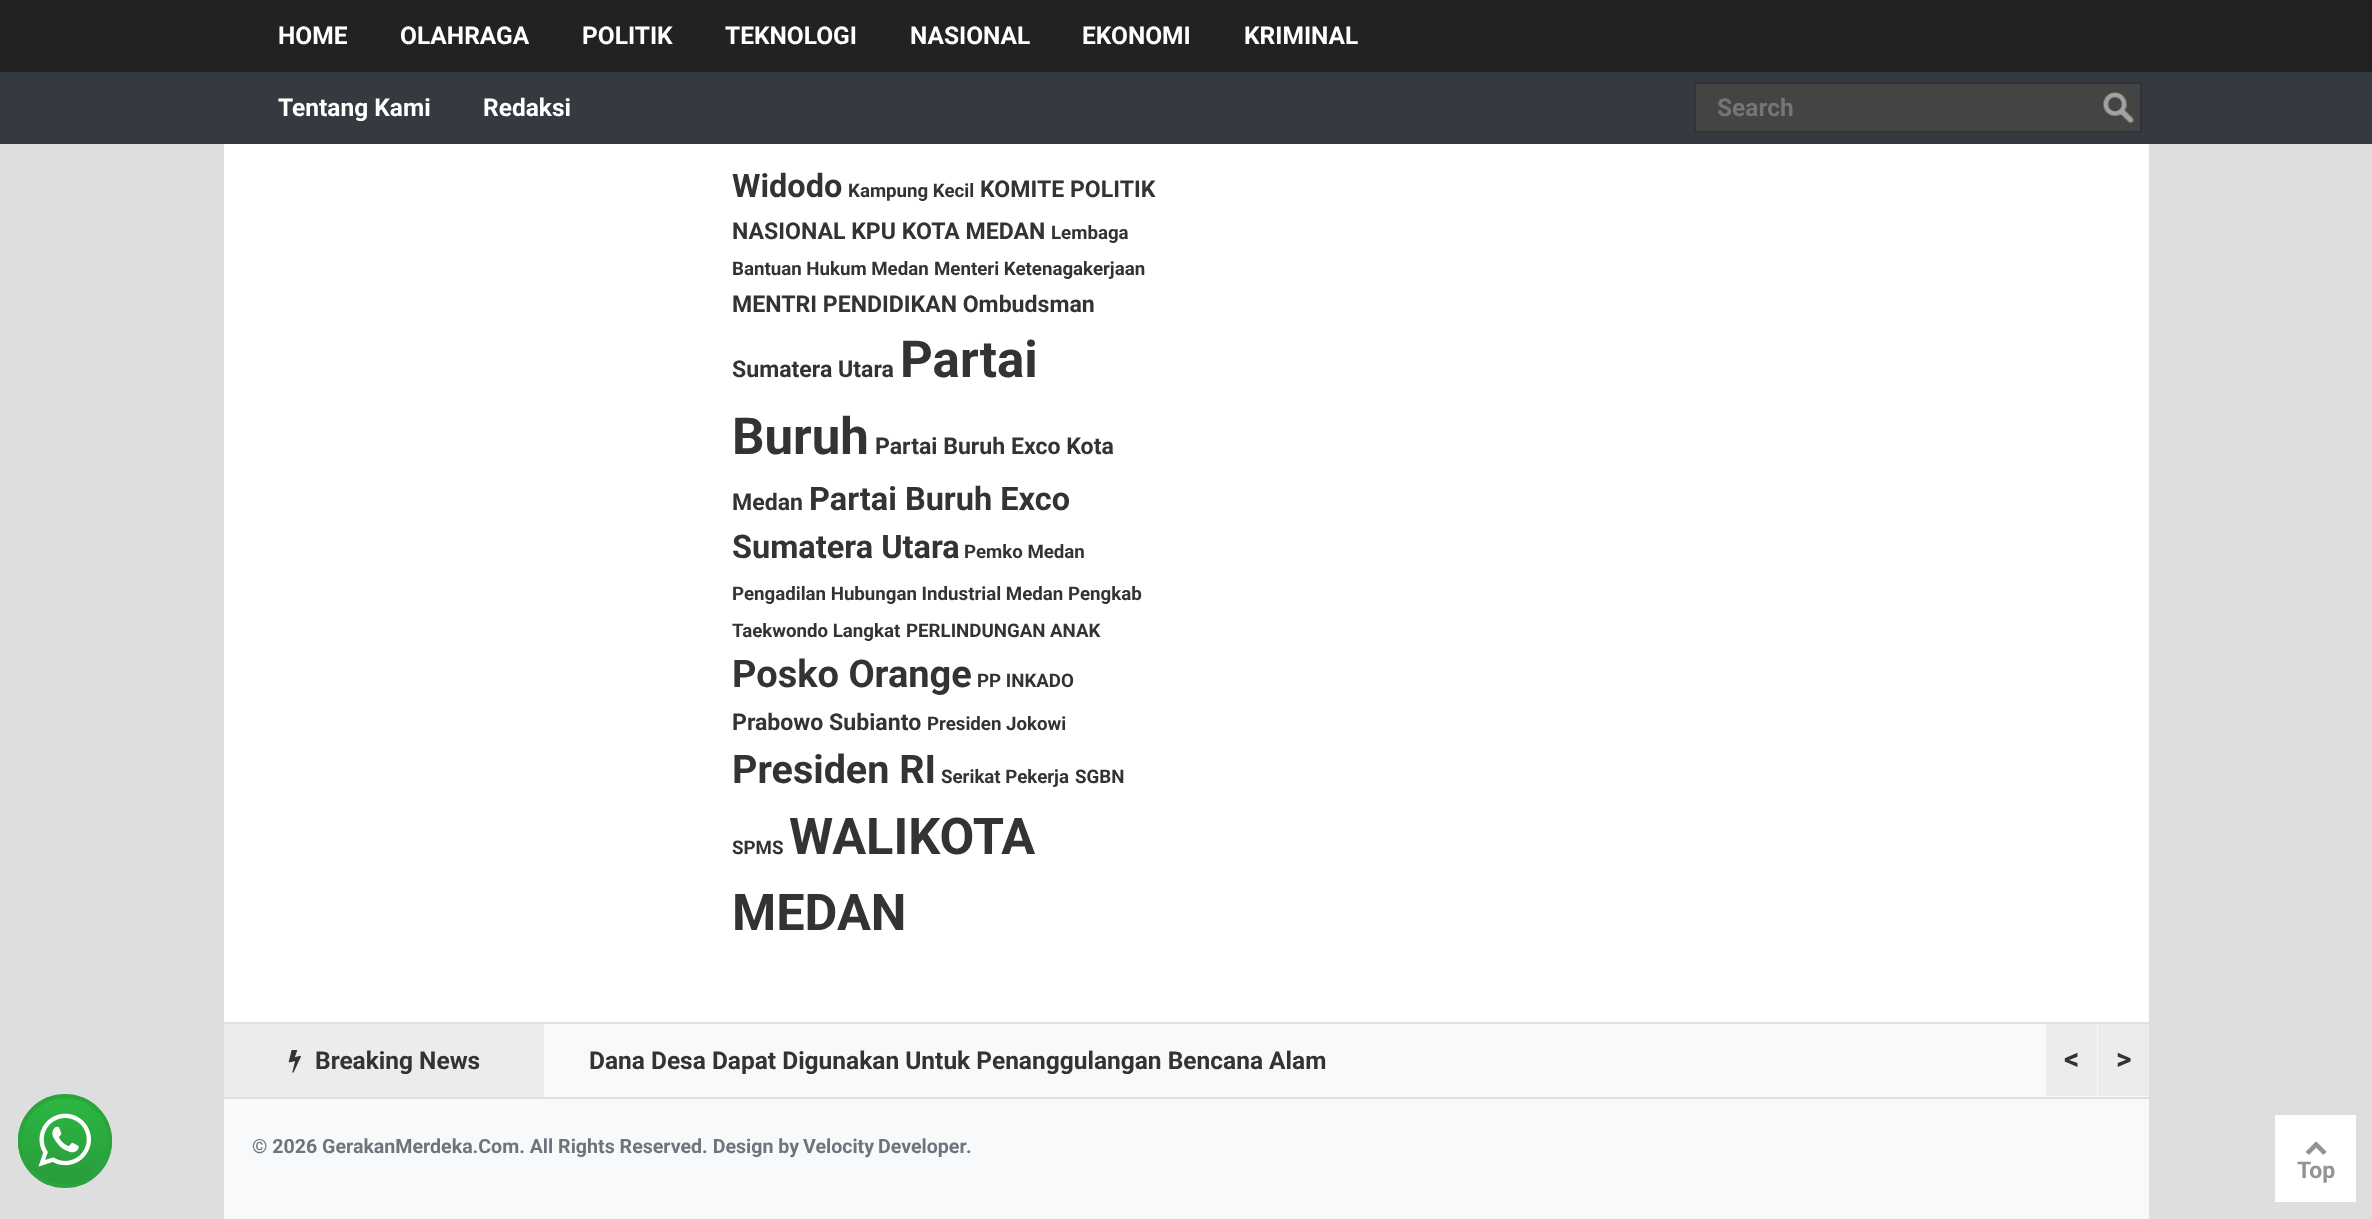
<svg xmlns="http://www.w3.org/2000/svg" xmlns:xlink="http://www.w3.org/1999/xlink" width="2372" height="1219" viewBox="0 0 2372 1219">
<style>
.cls-1{font:bold 24.5px Roboto;fill:#ffffff}
.cls-2{font:bold 24.5px Roboto;fill:#757575}
.cls-3{font:bold 32.5px Roboto;fill:#333333}
.cls-4{font:bold 18.7px Roboto;fill:#333333}
.cls-5{font:bold 23.1px Roboto;fill:#333333}
.cls-6{font:bold 51px Roboto;fill:#333333}
.cls-7{font:bold 38px Roboto;fill:#333333}
.cls-8{font:bold 39.5px Roboto;fill:#333333}
.cls-9{font:bold 50.5px Roboto;fill:#333333}
.cls-10{font:bold 24.5px Roboto;fill:#333333}
.cls-11{font:bold 30px Roboto;fill:#333333}
.cls-12{font:bold 19.6px Roboto;fill:#6c757d}
.cls-13{font:bold 23px Roboto;fill:#939393}
</style>
<defs>
<clipPath id="clip1"><rect x="18" y="1094" width="94" height="94" rx="47"/></clipPath>
<linearGradient id="g1" gradientUnits="userSpaceOnUse" x1="65" y1="1097" x2="65" y2="1185"><stop offset="0" stop-color="#2cb742"/><stop offset="1" stop-color="#2a9b3c"/></linearGradient>
</defs>
<rect width="100%" height="100%" fill="#dedede"/>
<g clip-path="url(#clip1)">
<rect fill="url(#g1)" x="18" y="1097" width="94" height="88"/>
</g>
<circle fill="none" stroke="#2aa43d" stroke-width="4" cx="65" cy="1141" r="45"/>
<image xlink:href="image0.png" x="38" y="1113" width="53" height="54"/>
<rect fill="#f8f9fa" x="224" y="1024" width="1925" height="195"/>
<rect fill="#222222" x="0" y="0" width="2372" height="72"/>
<rect fill="#343a40" x="0" y="72" width="2372" height="72"/>
<rect fill="#444444" stroke="#2e3439" stroke-width="2" x="1695" y="83" width="446" height="49"/>
<image xlink:href="image1.png" x="2103" y="92" width="31" height="31"/>
<rect fill="#ffffff" x="224" y="144" width="1925" height="878"/>
<rect fill="#dfe0e1" x="224" y="1022" width="1925" height="2"/>
<rect fill="#eeebeb" x="224" y="1024" width="320" height="73"/>
<image xlink:href="image2.png" x="288" y="1050" width="13" height="23"/>
<rect fill="#eeebeb" x="2046" y="1024" width="51" height="72"/>
<rect fill="#eeebeb" x="2098" y="1024" width="51" height="72"/>
<rect fill="#dfe0e1" x="224" y="1097" width="1925" height="2"/>
<rect fill="#ffffff" x="2275" y="1115" width="81" height="87"/>
<image xlink:href="image3.png" x="2306" y="1141" width="21" height="14"/>
<text class="cls-1" x="278" y="44">HOME</text>
<text class="cls-1" x="400" y="44">OLAHRAGA</text>
<text class="cls-1" x="582" y="44">POLITIK</text>
<text class="cls-1" x="725" y="44">TEKNOLOGI</text>
<text class="cls-1" x="910" y="44">NASIONAL</text>
<text class="cls-1" x="1082" y="44">EKONOMI</text>
<text class="cls-1" x="1244" y="44">KRIMINAL</text>
<text class="cls-1" x="278" y="116">Tentang Kami</text>
<text class="cls-1" x="483" y="116">Redaksi</text>
<text class="cls-2" x="1717" y="116">Search</text>
<text class="cls-3" x="732" y="197">Widodo</text>
<text class="cls-4" x="848" y="197">Kampung Kecil</text>
<text class="cls-5" x="980" y="197">KOMITE POLITIK</text>
<text class="cls-5" x="732" y="239">NASIONAL KPU KOTA MEDAN</text>
<text class="cls-4" x="1051" y="239">Lembaga</text>
<text class="cls-4" x="732" y="275">Bantuan Hukum Medan</text>
<text class="cls-4" x="934" y="275">Menteri Ketenagakerjaan</text>
<text class="cls-5" x="732" y="312">MENTRI PENDIDIKAN Ombudsman</text>
<text class="cls-5" x="732" y="377">Sumatera Utara</text>
<text class="cls-6" x="900" y="377">Partai</text>
<text class="cls-6" x="732" y="454">Buruh</text>
<text class="cls-5" x="875" y="454">Partai Buruh Exco Kota</text>
<text class="cls-5" x="732" y="510">Medan</text>
<text class="cls-3" x="809" y="510">Partai Buruh Exco</text>
<text class="cls-3" x="732" y="558">Sumatera Utara</text>
<text class="cls-4" x="964" y="558">Pemko Medan</text>
<text class="cls-4" x="732" y="600">Pengadilan Hubungan Industrial Medan</text>
<text class="cls-4" x="1068" y="600">Pengkab</text>
<text class="cls-4" x="732" y="637">Taekwondo Langkat</text>
<text class="cls-4" x="906" y="637">PERLINDUNGAN ANAK</text>
<text class="cls-7" x="732" y="687">Posko Orange</text>
<text class="cls-4" x="977" y="687">PP INKADO</text>
<text class="cls-5" x="732" y="730">Prabowo Subianto</text>
<text class="cls-4" x="927" y="730">Presiden Jokowi</text>
<text class="cls-8" x="732" y="783">Presiden RI</text>
<text class="cls-4" x="941" y="783">Serikat Pekerja</text>
<text class="cls-4" x="1075" y="783">SGBN</text>
<text class="cls-4" x="732" y="854">SPMS</text>
<text class="cls-9" x="789" y="854">WALIKOTA</text>
<text class="cls-9" x="732" y="930">MEDAN</text>
<text class="cls-10" x="315" y="1069">Breaking News</text>
<text class="cls-10" x="589" y="1069">Dana Desa Dapat Digunakan Untuk Penanggulangan Bencana Alam</text>
<text class="cls-11" x="2064" y="1069">&lt;</text>
<text class="cls-11" x="2116" y="1069">&gt;</text>
<text class="cls-12" x="252" y="1153">© 2026 GerakanMerdeka.Com. All Rights Reserved. Design by</text>
<text class="cls-12" x="803" y="1153" word-spacing="-1">Velocity Developer</text>
<text class="cls-12" x="966" y="1153">.</text>
<text class="cls-13" x="2297" y="1178">Top</text>
</svg>
